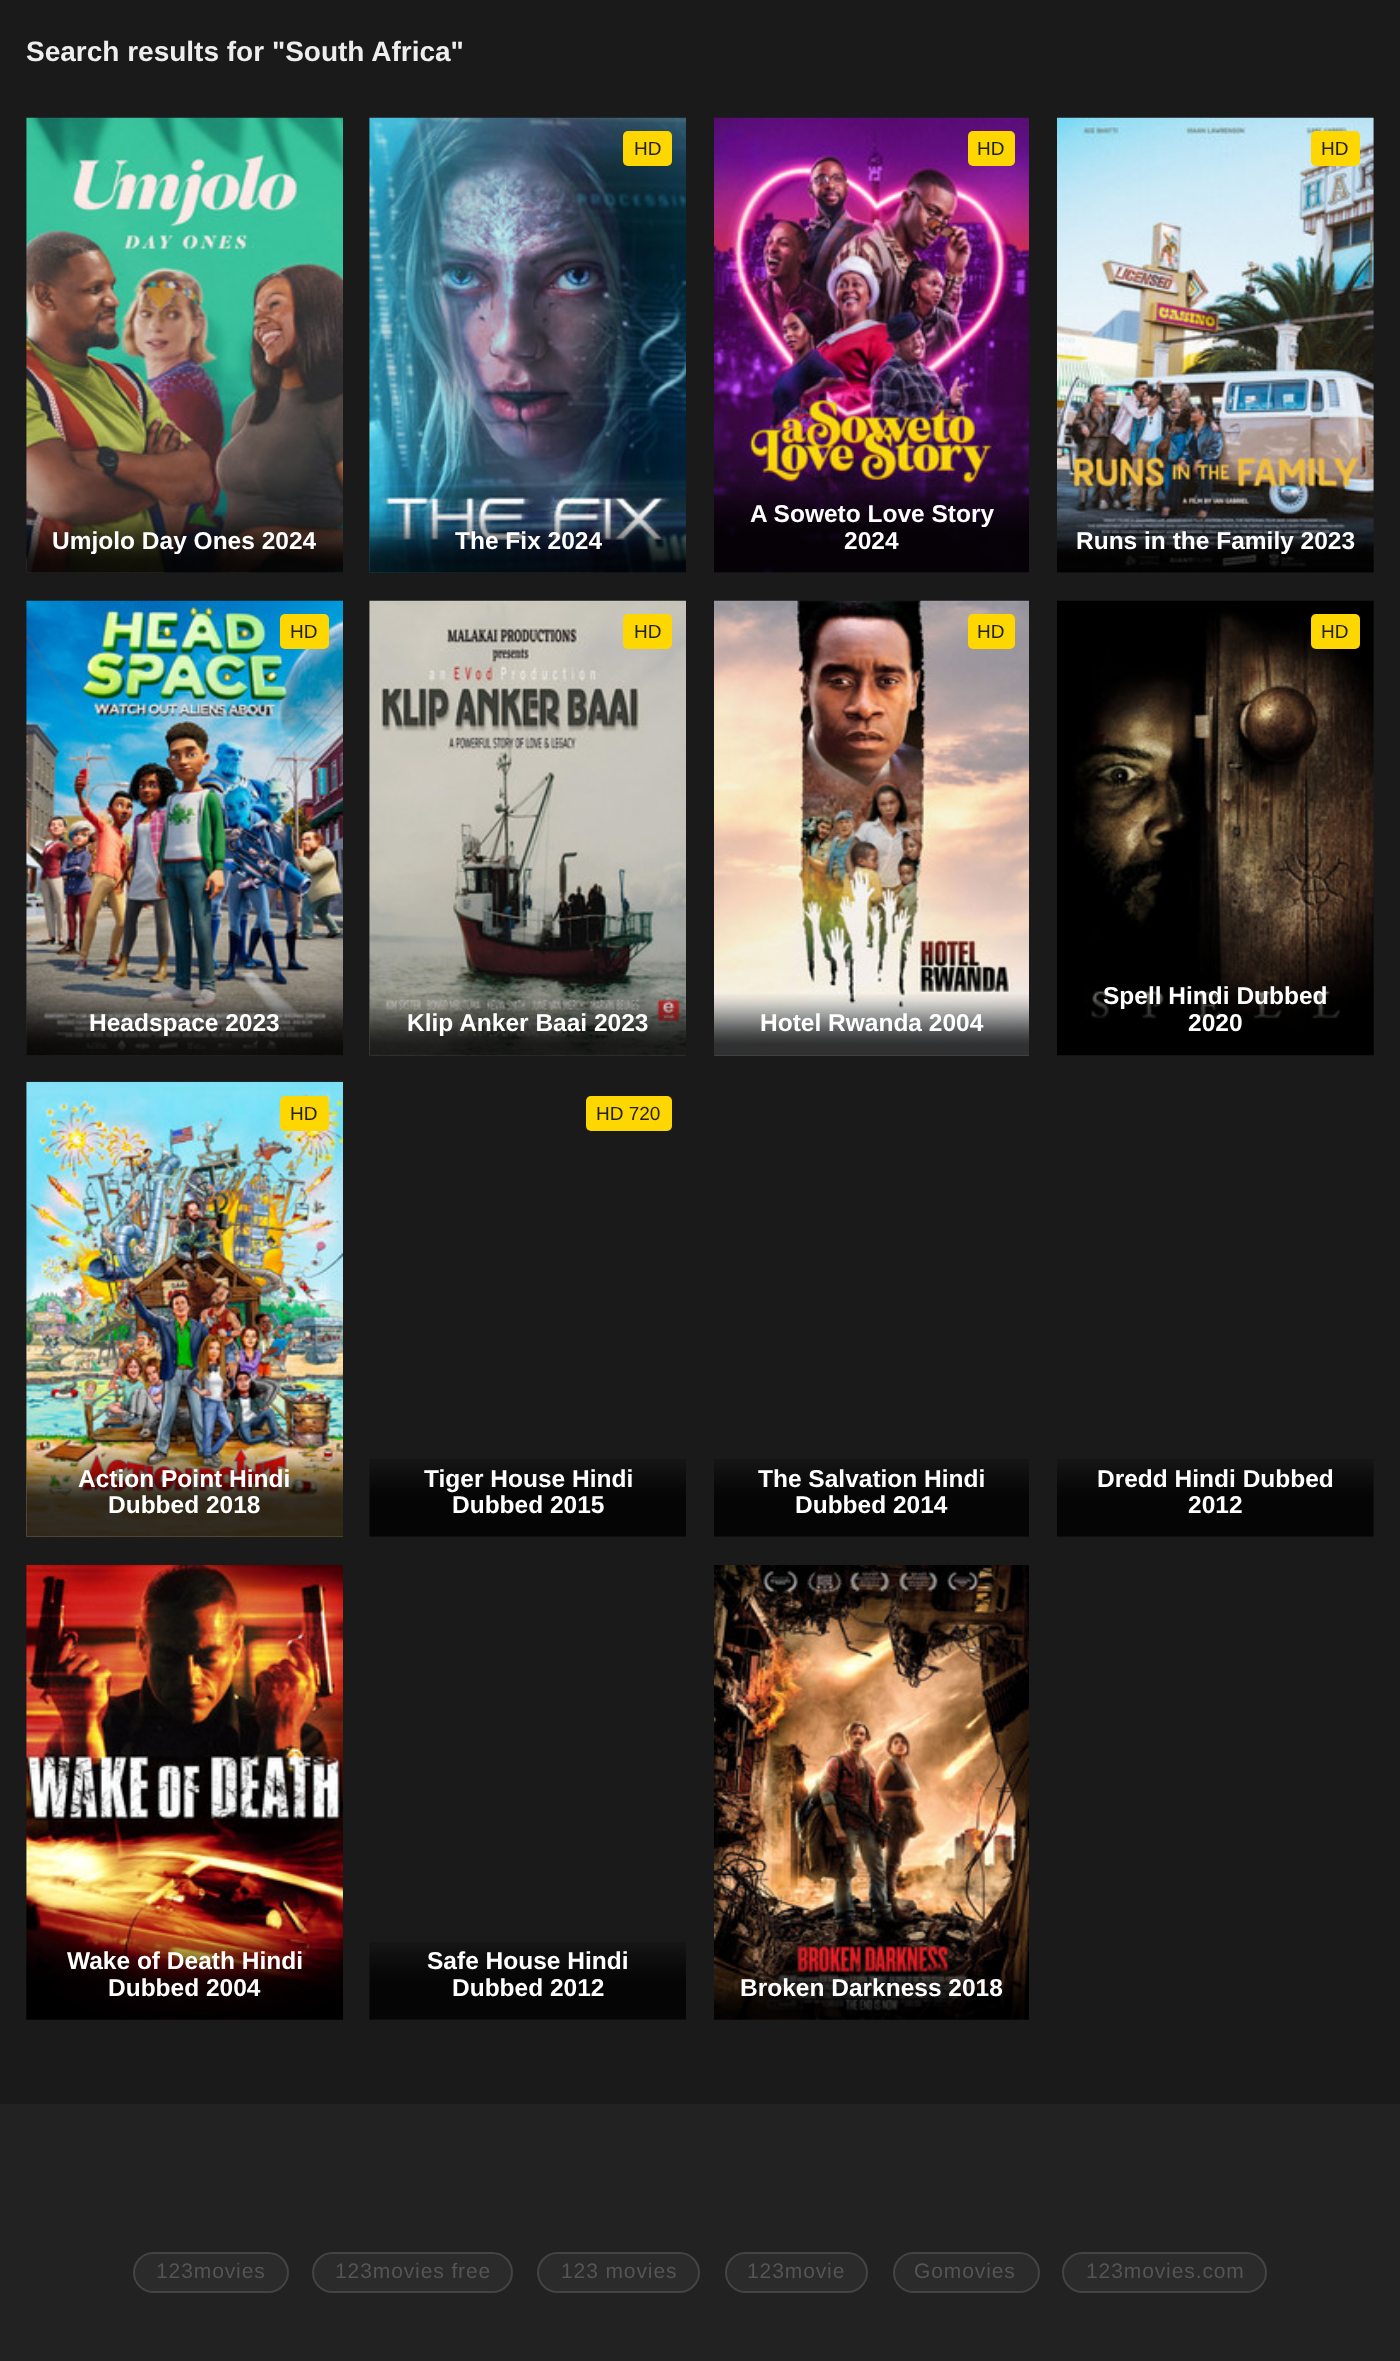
<svg xmlns="http://www.w3.org/2000/svg" xmlns:xlink="http://www.w3.org/1999/xlink" width="1400" height="2361" viewBox="0 0 1400 2361">
<style>
.cls-1{font:bold 28px Liberation Sans;fill:#eeeeee}
.cls-2{font:bold 24.5px Liberation Sans;fill:#ffffff}
.cls-3{font:19px Liberation Sans;fill:#222222}
.cls-4{font:21px Liberation Sans;letter-spacing:0.9px;fill:#555555}
</style>
<rect width="100%" height="100%" fill="#1a1a1a"/>
<image xlink:href="image0.png" x="26" y="117" width="317" height="456"/>
<image xlink:href="image1.png" x="26" y="512" width="317" height="61"/>
<image xlink:href="image2.png" x="369" y="117" width="317" height="456"/>
<rect fill="#fed700" x="623" y="131" width="49" height="35" rx="5"/>
<image xlink:href="image3.png" x="369" y="511" width="317" height="62"/>
<image xlink:href="image4.png" x="714" y="117" width="315" height="456"/>
<rect fill="#fed700" x="968" y="131" width="47" height="35" rx="5"/>
<image xlink:href="image5.png" x="714" y="487" width="315" height="86"/>
<image xlink:href="image6.png" x="1057" y="117" width="317" height="456"/>
<rect fill="#fed700" x="1311" y="131" width="49" height="35" rx="5"/>
<image xlink:href="image7.png" x="1057" y="511" width="317" height="62"/>
<image xlink:href="image8.png" x="26" y="600" width="317" height="456"/>
<rect fill="#fed700" x="280" y="614" width="49" height="35" rx="5"/>
<image xlink:href="image9.png" x="26" y="994" width="317" height="62"/>
<image xlink:href="image10.png" x="369" y="600" width="317" height="456"/>
<rect fill="#fed700" x="623" y="614" width="49" height="35" rx="5"/>
<image xlink:href="image11.png" x="369" y="995" width="317" height="61"/>
<image xlink:href="image12.png" x="714" y="600" width="315" height="456"/>
<rect fill="#fed700" x="968" y="614" width="47" height="35" rx="5"/>
<image xlink:href="image13.png" x="714" y="994" width="315" height="62"/>
<image xlink:href="image14.png" x="1057" y="600" width="317" height="456"/>
<rect fill="#fed700" x="1311" y="614" width="49" height="35" rx="5"/>
<image xlink:href="image15.png" x="1088" y="973" width="286" height="82"/>
<image xlink:href="image16.png" x="26" y="1081" width="317" height="456"/>
<rect fill="#fed700" x="280" y="1096" width="49" height="35" rx="5"/>
<image xlink:href="image17.png" x="26" y="1449" width="317" height="88"/>
<rect fill="#fed700" x="586" y="1096" width="86" height="35" rx="5"/>
<image xlink:href="image18.png" x="369" y="1459" width="317" height="78"/>
<image xlink:href="image19.png" x="714" y="1459" width="315" height="78"/>
<image xlink:href="image20.png" x="1057" y="1459" width="317" height="78"/>
<image xlink:href="image21.png" x="26" y="1564" width="317" height="456"/>
<image xlink:href="image22.png" x="26" y="1932" width="317" height="88"/>
<image xlink:href="image18.png" x="369" y="1942" width="317" height="78"/>
<image xlink:href="image23.png" x="714" y="1565" width="315" height="455"/>
<image xlink:href="image24.png" x="714" y="1960" width="315" height="60"/>
<rect fill="#222222" x="0" y="2104" width="1400" height="257"/>
<rect fill="#2b2b2b" stroke="#444444" stroke-width="2" x="134" y="2253" width="154" height="39" rx="19.5"/>
<rect fill="#2b2b2b" stroke="#444444" stroke-width="2" x="313" y="2253" width="199" height="39" rx="19.5"/>
<rect fill="#2b2b2b" stroke="#444444" stroke-width="2" x="538" y="2253" width="161" height="39" rx="19.5"/>
<rect fill="#2b2b2b" stroke="#444444" stroke-width="2" x="726" y="2253" width="141" height="39" rx="19.5"/>
<rect fill="#2b2b2b" stroke="#444444" stroke-width="2" x="894" y="2253" width="145" height="39" rx="19.5"/>
<rect fill="#2b2b2b" stroke="#444444" stroke-width="2" x="1063" y="2253" width="203" height="39" rx="19.5"/>
<text class="cls-1" x="26" y="61">Search results for "South Africa"</text>
<text class="cls-2" x="52" y="549">Umjolo Day Ones 2024</text>
<text class="cls-3" x="634" y="155">HD</text>
<text class="cls-2" x="455" y="549">The Fix 2024</text>
<text class="cls-3" x="977" y="155">HD</text>
<text class="cls-2" x="750" y="522">A Soweto Love Story</text>
<text class="cls-2" x="844" y="549">2024</text>
<text class="cls-3" x="1321" y="155">HD</text>
<text class="cls-2" x="1076" y="549">Runs in the Family 2023</text>
<text class="cls-3" x="290" y="638">HD</text>
<text class="cls-2" x="89" y="1031">Headspace 2023</text>
<text class="cls-3" x="634" y="638">HD</text>
<text class="cls-2" x="407" y="1031">Klip Anker Baai 2023</text>
<text class="cls-3" x="977" y="638">HD</text>
<text class="cls-2" x="760" y="1031">Hotel Rwanda 2004</text>
<text class="cls-3" x="1321" y="638">HD</text>
<text class="cls-2" x="1103" y="1004">Spell Hindi Dubbed</text>
<text class="cls-2" x="1188" y="1031">2020</text>
<text class="cls-3" x="290" y="1120">HD</text>
<text class="cls-2" x="78" y="1487">Action Point Hindi</text>
<text class="cls-2" x="108" y="1513">Dubbed 2018</text>
<text class="cls-3" x="596" y="1120">HD 720</text>
<text class="cls-2" x="424" y="1487">Tiger House Hindi</text>
<text class="cls-2" x="452" y="1513">Dubbed 2015</text>
<text class="cls-2" x="758" y="1487">The Salvation Hindi</text>
<text class="cls-2" x="795" y="1513">Dubbed 2014</text>
<text class="cls-2" x="1097" y="1487">Dredd Hindi Dubbed</text>
<text class="cls-2" x="1188" y="1513">2012</text>
<text class="cls-2" x="67" y="1969">Wake of Death Hindi</text>
<text class="cls-2" x="108" y="1996">Dubbed 2004</text>
<text class="cls-2" x="427" y="1969">Safe House Hindi</text>
<text class="cls-2" x="452" y="1996">Dubbed 2012</text>
<text class="cls-2" x="740" y="1996">Broken Darkness 2018</text>
<text class="cls-4" x="156" y="2278">123movies</text>
<text class="cls-4" x="335" y="2278">123movies free</text>
<text class="cls-4" x="561" y="2278">123 movies</text>
<text class="cls-4" x="747" y="2278">123movie</text>
<text class="cls-4" x="914" y="2278">Gomovies</text>
<text class="cls-4" x="1086" y="2278">123movies.com</text>
</svg>
